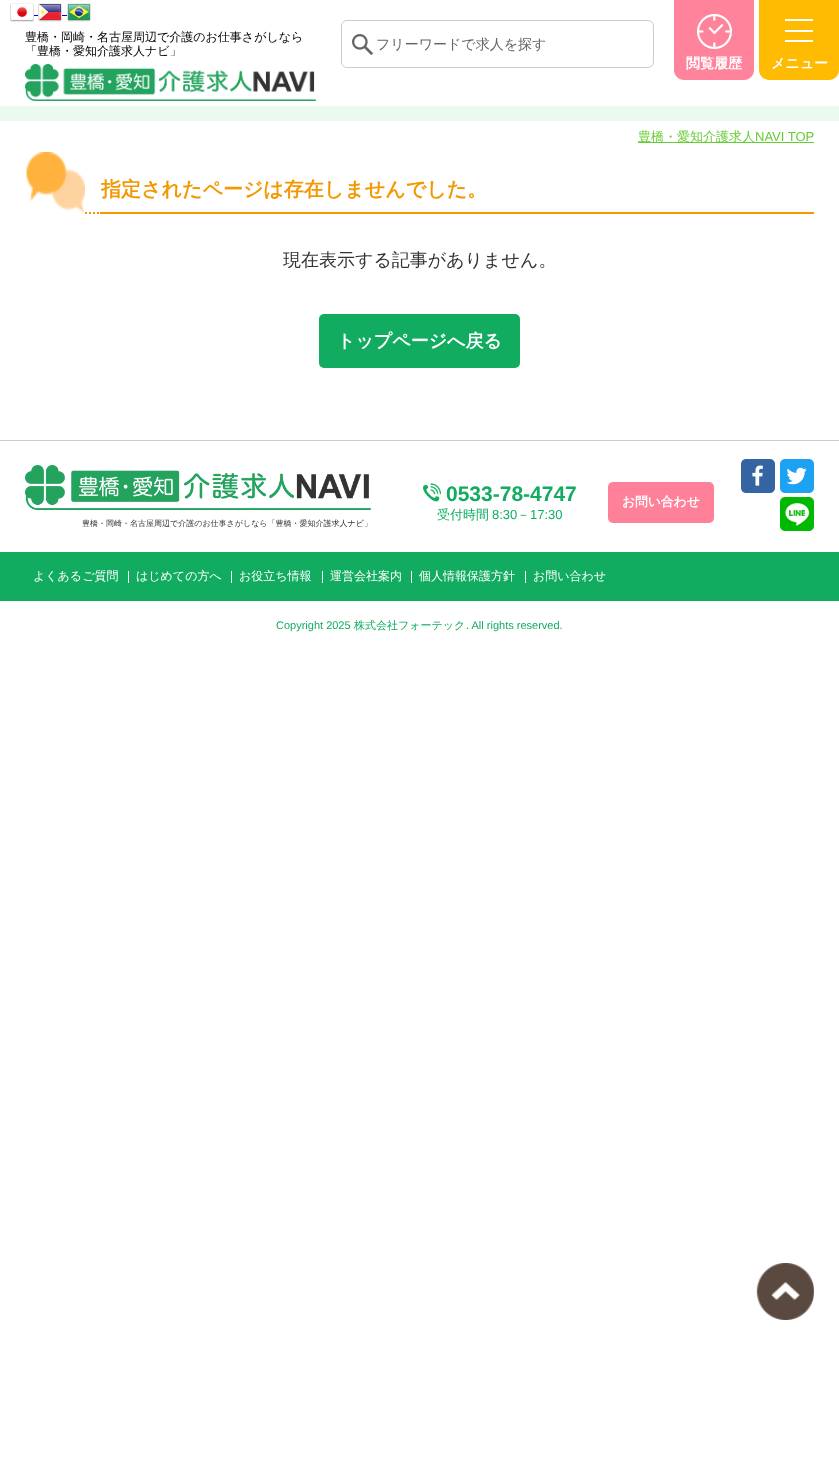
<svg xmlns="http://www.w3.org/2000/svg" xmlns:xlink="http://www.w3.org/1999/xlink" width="839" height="1470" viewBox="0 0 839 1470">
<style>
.cls-1{font:500 12px WenQuanYi Zen Hei;fill:#000000}
.cls-2{font:500 14px WenQuanYi Zen Hei;fill:#666666}
.cls-3{font:bold 14px WenQuanYi Zen Hei;fill:#ffffff}
.cls-4{font:500 13px WenQuanYi Zen Hei;fill:#66cc33}
.cls-5{font:13px Liberation Sans;fill:#66cc33}
.cls-6{font:bold 20px WenQuanYi Zen Hei;fill:#f39800}
.cls-7{font:500 18px WenQuanYi Zen Hei;fill:#333333}
.cls-8{font:bold 18px WenQuanYi Zen Hei;fill:#ffffff}
.cls-9{font:bold 21px Liberation Sans;fill:#12ac61}
.cls-10{font:500 13px WenQuanYi Zen Hei;fill:#12ac61}
.cls-11{font:13px Liberation Sans;fill:#12ac61}
.cls-12{font:bold 12.75px WenQuanYi Zen Hei;fill:#ffffff}
.cls-13{font:500 8px WenQuanYi Zen Hei;fill:#333333}
.cls-14{font:500 12px WenQuanYi Zen Hei;fill:#ffffff}
.cls-15{font:11px Liberation Sans;fill:#12ac61}
.cls-16{font:500 11px WenQuanYi Zen Hei;fill:#12ac61}
</style>
<rect width="100%" height="100%" fill="#ffffff"/>
<image xlink:href="image0.png" x="10" y="3" width="24" height="19"/>
<rect fill="#0000ee" x="34" y="15" width="4" height="1"/>
<image xlink:href="image1.png" x="38" y="3" width="24" height="19"/>
<rect fill="#0000ee" x="62" y="15" width="5" height="1"/>
<image xlink:href="image2.png" x="67" y="3" width="24" height="19"/>
<image xlink:href="image3.png" x="25" y="64" width="291" height="37"/>
<rect fill="none" stroke="#cccccc" x="341.5" y="20.5" width="312" height="47" rx="5.5"/>
<image xlink:href="image4.png" x="352" y="34" width="21" height="21"/>
<path fill="#ff839b" d="M674 0H754V70C754 75.5 749.5 80 744 80H684C678.5 80 674 75.5 674 70Z"/>
<image xlink:href="image5.png" x="697" y="14" width="35" height="35"/>
<path fill="#ffbb02" d="M759 0H839V70C839 75.5 834.5 80 829 80H769C763.5 80 759 75.5 759 70Z"/>
<rect fill="#ffffff" x="785" y="30" width="28" height="2"/>
<rect fill="#ffffff" x="785" y="19" width="28" height="2"/>
<rect fill="#ffffff" x="785" y="40" width="28" height="2"/>
<rect fill="#ebfaee" x="0" y="106" width="839" height="15"/>
<rect fill="#66cc33" x="638" y="142" width="176" height="1"/>
<image xlink:href="image6.png" x="26" y="152" width="59" height="60"/>
<path fill="none" stroke="#f39800" stroke-width="2" stroke-dasharray="2 2" d="M85 213H100"/>
<rect fill="#f39800" x="100" y="212" width="714" height="2"/>
<rect fill="#12ac61" x="319" y="314" width="201" height="54" rx="5"/>
<rect fill="#cccccc" x="0" y="440" width="839" height="1"/>
<image xlink:href="image7.png" x="423" y="483" width="18" height="19"/>
<rect fill="#ff8199" x="608" y="482" width="106" height="41" rx="5"/>
<image xlink:href="image8.png" x="741" y="459" width="34" height="34"/>
<image xlink:href="image9.png" x="780" y="459" width="34" height="34"/>
<image xlink:href="image10.png" x="780" y="497" width="34" height="34"/>
<image xlink:href="image11.png" x="25" y="465" width="346" height="45"/>
<rect fill="#12ac61" x="0" y="552" width="839" height="49"/>
<rect fill="#ffffff" x="128" y="571" width="1" height="12"/>
<rect fill="#ffffff" x="231" y="571" width="1" height="12"/>
<rect fill="#ffffff" x="322" y="571" width="1" height="12"/>
<rect fill="#ffffff" x="411" y="571" width="1" height="12"/>
<rect fill="#ffffff" x="525" y="571" width="1" height="12"/>
<image xlink:href="image12.png" x="756" y="1263" width="58" height="57"/>
<text class="cls-1"><tspan x="25" y="41">豊橋・岡崎・名古屋周辺で介護のお仕事さがしなら</tspan><tspan x="25" y="55">「豊橋・愛知介護求人ナビ」</tspan></text>
<text class="cls-2" x="376" y="49">フリーワードで求人を探す</text>
<text class="cls-3" x="686" y="68">閲覧履歴</text>
<text class="cls-3" x="771" y="68">メニュー</text>
<text class="cls-4" x="638" y="141">豊橋・愛知介護求人</text>
<text class="cls-5" x="755" y="141">NAVI TOP</text>
<text class="cls-6" x="101" y="196">指定されたページは存在しませんでした。</text>
<text class="cls-7" x="283" y="266">現在表示する記事がありません。</text>
<text class="cls-8" x="337" y="347">トップページへ戻る</text>
<text class="cls-9" x="446" y="501">0533-78-4747</text>
<text class="cls-10" x="437" y="519">受付時間</text>
<text class="cls-11" x="492" y="519">8:30</text>
<text class="cls-10" x="517" y="519">－</text>
<text class="cls-11" x="530" y="519">17:30</text>
<text class="cls-12" x="622" y="506">お問い合わせ</text>
<text class="cls-13" x="82" y="526">豊橋・岡崎・名古屋周辺で介護のお仕事さがしなら「豊橋・愛知介護求人ナビ」</text>
<text class="cls-14" x="33" y="580">よくあるご質問</text>
<text class="cls-14" x="136" y="580">はじめての方へ</text>
<text class="cls-14" x="239" y="580">お役立ち情報</text>
<text class="cls-14" x="330" y="580">運営会社案内</text>
<text class="cls-14" x="419" y="580">個人情報保護方針</text>
<text class="cls-14" x="533" y="580">お問い合わせ</text>
<text class="cls-15" x="276" y="629">Copyright 2025</text>
<text class="cls-16" x="354" y="629">株式会社フォーテック</text>
<text class="cls-15" x="466" y="629">. All rights reserved.</text>
</svg>
